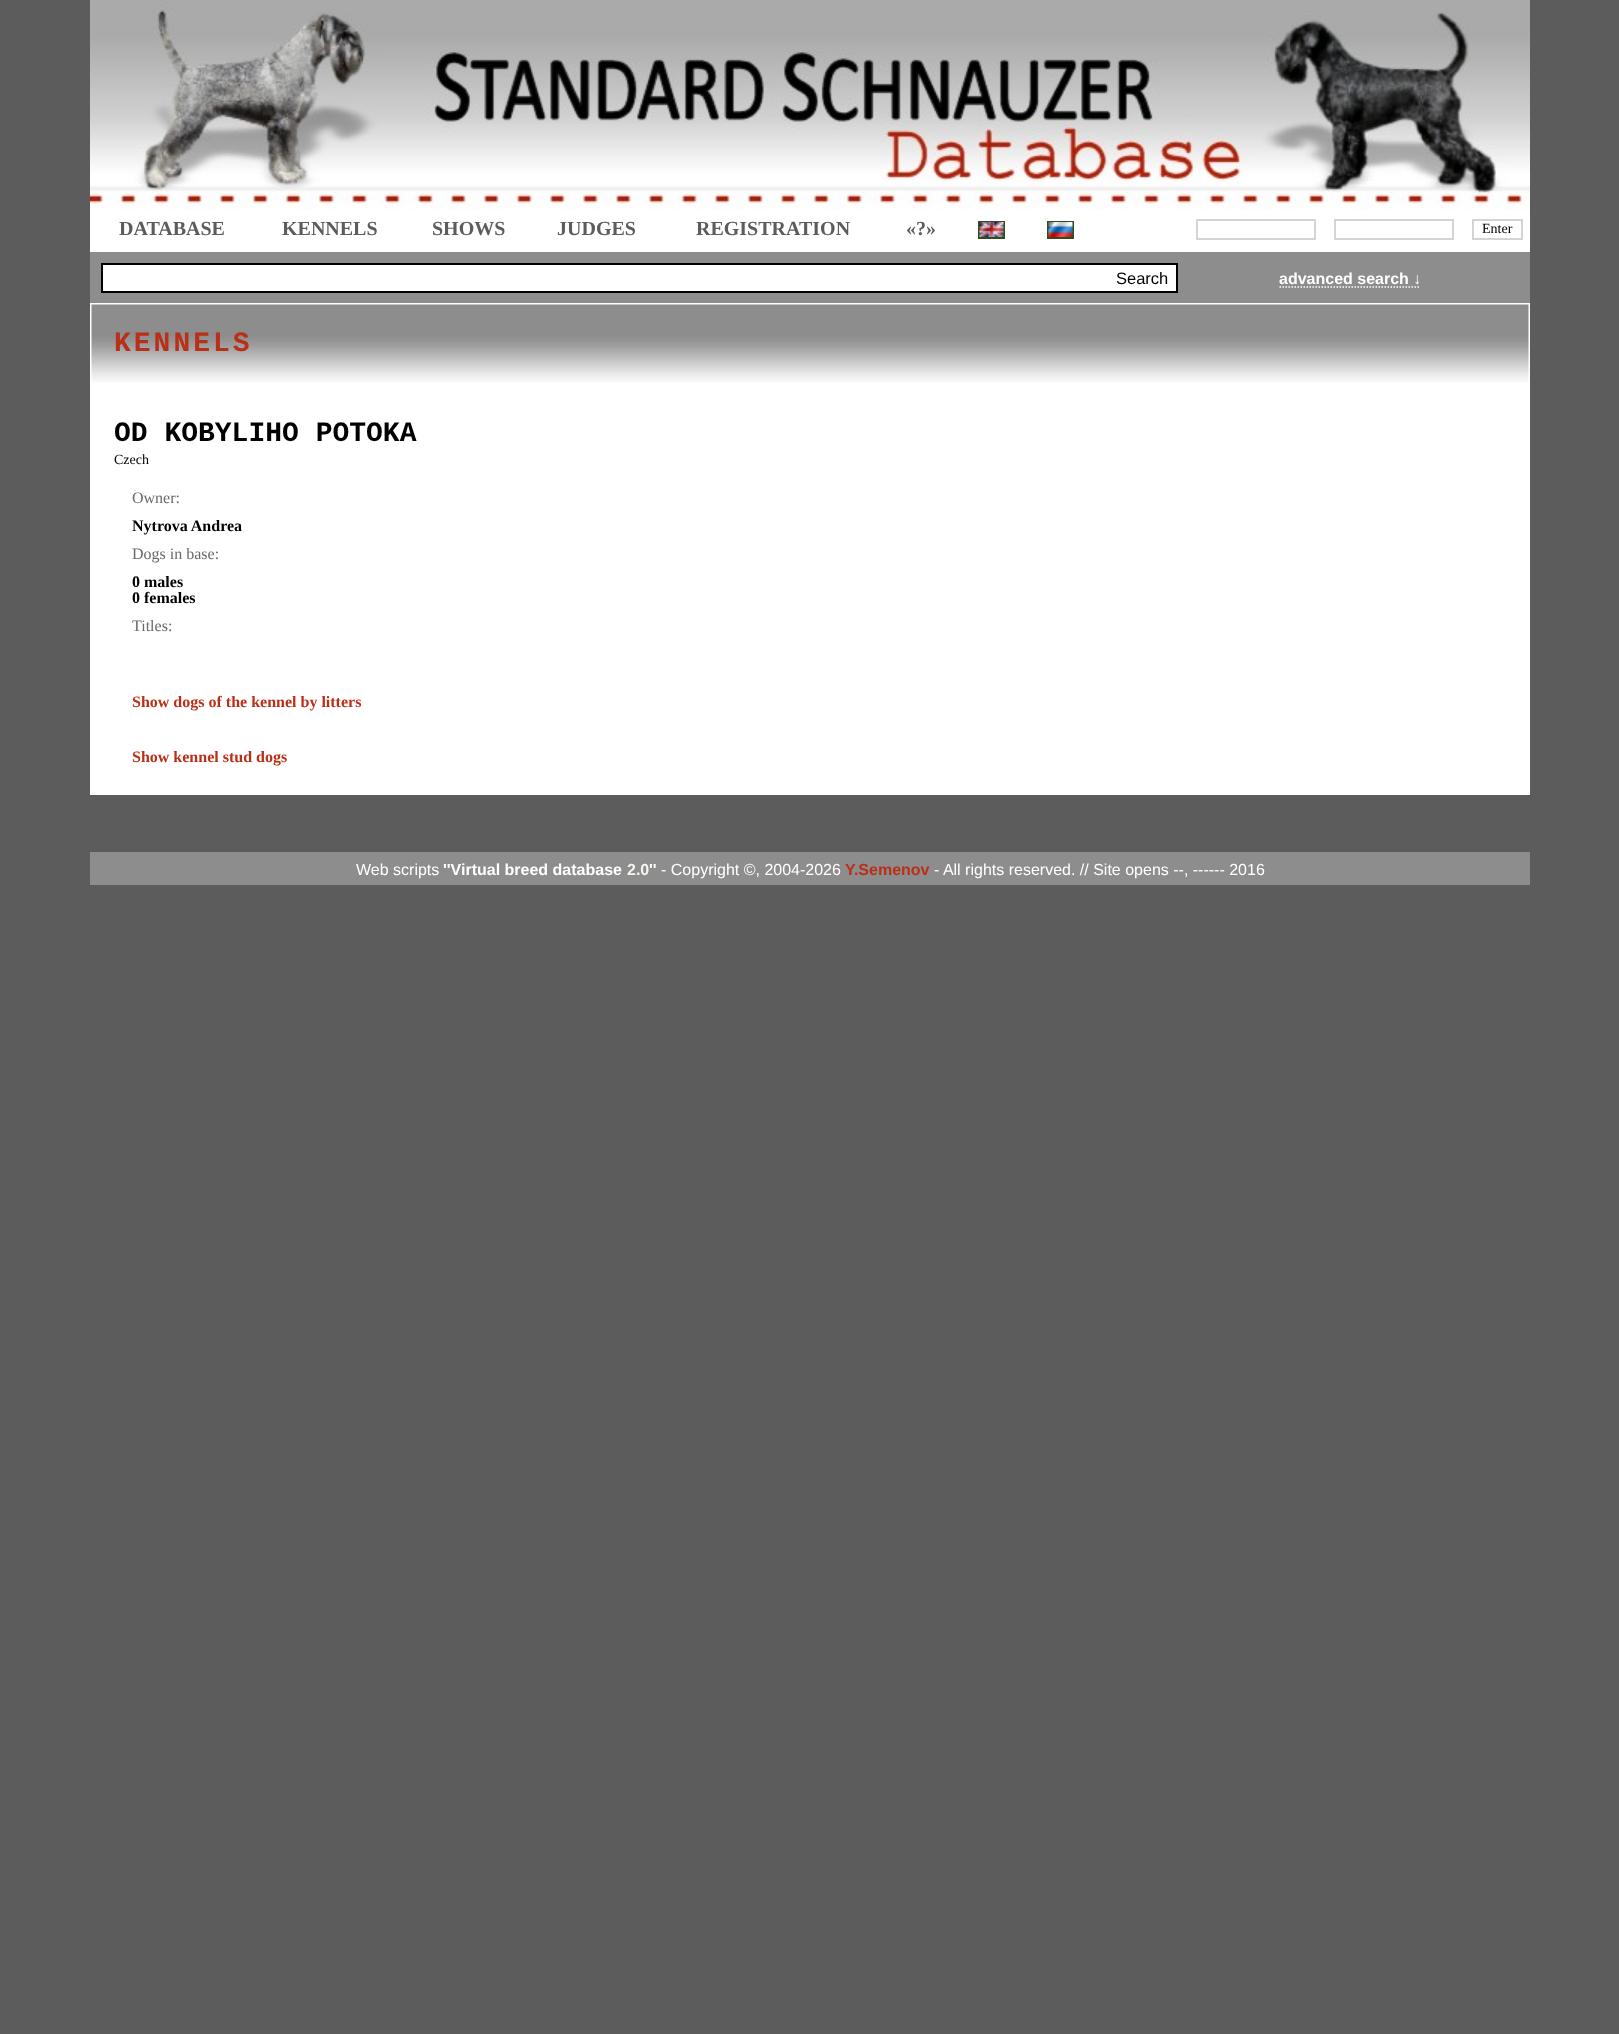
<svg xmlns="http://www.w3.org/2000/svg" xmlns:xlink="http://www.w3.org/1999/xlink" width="1619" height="2034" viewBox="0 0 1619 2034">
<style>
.cls-1{font:bold 20px Liberation Serif;fill:#5c5c5c}
.cls-2{font:14px Liberation Serif;fill:#000000}
.cls-3{font:16.5px Liberation Sans;fill:#000000}
.cls-4{font:bold 16px Liberation Sans;fill:#ffffff}
.cls-5{font:bold 28px Liberation Mono;letter-spacing:3px;fill:#ba2f18}
.cls-6{font:bold 28px Liberation Mono;fill:#000000}
.cls-7{font:16px Liberation Serif;fill:#686868}
.cls-8{font:bold 16px Liberation Serif;fill:#000000}
.cls-9{font:bold 16px Liberation Serif;fill:#ba2f18}
.cls-10{font:16px Liberation Sans;fill:#ffffff}
.cls-11{font:bold 16px Liberation Sans;fill:#f8f5f0}
.cls-12{font:bold 16px Liberation Sans;fill:#ba2f18}
</style>
<rect width="100%" height="100%" fill="#5c5c5c"/>
<image xlink:href="image0.png" x="90" y="0" width="1440" height="210"/>
<rect fill="#ffffff" x="90" y="210" width="1440" height="42"/>
<rect fill="none" stroke="#2f4e1f" stroke-width="2" x="979" y="222" width="25" height="16"/>
<image xlink:href="image1.png" x="979" y="222" width="25" height="15"/>
<rect fill="none" stroke="#2f4e1f" stroke-width="2" x="1048" y="222" width="25" height="16"/>
<image xlink:href="image2.png" x="1048" y="222" width="25" height="15"/>
<rect fill="none" stroke="#d4d4d4" stroke-width="2" x="1197" y="220" width="118" height="19"/>
<rect fill="none" stroke="#d4d4d4" stroke-width="2" x="1335" y="220" width="118" height="19"/>
<rect fill="none" stroke="#d4d4d4" stroke-width="2" x="1473" y="220" width="49" height="19"/>
<rect fill="#8d8d8d" x="90" y="252" width="1440" height="51"/>
<rect fill="#ffffff" x="103" y="265" width="1073" height="26"/>
<rect fill="#000000" x="101" y="263" width="1077" height="2"/>
<rect fill="#000000" x="101" y="291" width="1008" height="2"/>
<rect fill="#000000" x="101" y="263" width="2" height="30"/>
<rect fill="#000000" x="1176" y="263" width="2" height="30"/>
<rect fill="#000000" x="1109" y="291" width="69" height="2"/>
<path fill="none" stroke="#ffffff" stroke-width="1.5" stroke-dasharray="1.5 1.5" d="M1279.5 287H1420.5"/>
<rect fill="#ffffff" x="90" y="303" width="1440" height="492"/>
<image xlink:href="image3.png" x="91" y="304" width="1438" height="79"/>
<rect fill="#8d8d8d" x="90" y="852" width="1440" height="33"/>
<text class="cls-1" x="119" y="235">DATABASE</text>
<text class="cls-1" x="282" y="235">KENNELS</text>
<text class="cls-1" x="432" y="235">SHOWS</text>
<text class="cls-1" x="557" y="235">JUDGES</text>
<text class="cls-1" x="696" y="235">REGISTRATION</text>
<text class="cls-1" x="906" y="235">«?»</text>
<text class="cls-2" x="1482" y="233">Enter</text>
<text class="cls-3" x="1116" y="284">Search</text>
<text class="cls-4" x="1279" y="284">advanced search ↓</text>
<text class="cls-5" x="114" y="351">KENNELS</text>
<text class="cls-6" x="114" y="441">OD KOBYLIHO POTOKA</text>
<text class="cls-2" x="114" y="464">Czech</text>
<text class="cls-7" x="132" y="503">Owner:</text>
<text class="cls-8" x="132" y="531">Nytrova Andrea</text>
<text class="cls-7" x="132" y="559">Dogs in base:</text>
<text class="cls-8"><tspan x="132" y="587">0 males</tspan><tspan x="132" y="603">0 females</tspan></text>
<text class="cls-7" x="132" y="631">Titles:</text>
<text class="cls-9" x="132" y="707">Show dogs of the kennel by litters</text>
<text class="cls-9" x="132" y="762">Show kennel stud dogs</text>
<text class="cls-10" x="356" y="875">Web scripts</text>
<text class="cls-4" x="443" y="875">''Virtual breed database</text>
<text class="cls-11" x="627" y="875">2.0</text>
<text class="cls-4" x="649" y="875">''</text>
<text class="cls-10" x="661" y="875">- Copyright ©, 2004-2026</text>
<text class="cls-12" x="845" y="875">Y.Semenov</text>
<text class="cls-10" x="934" y="875">- All rights reserved. // Site opens --, ------ 2016</text>
</svg>
